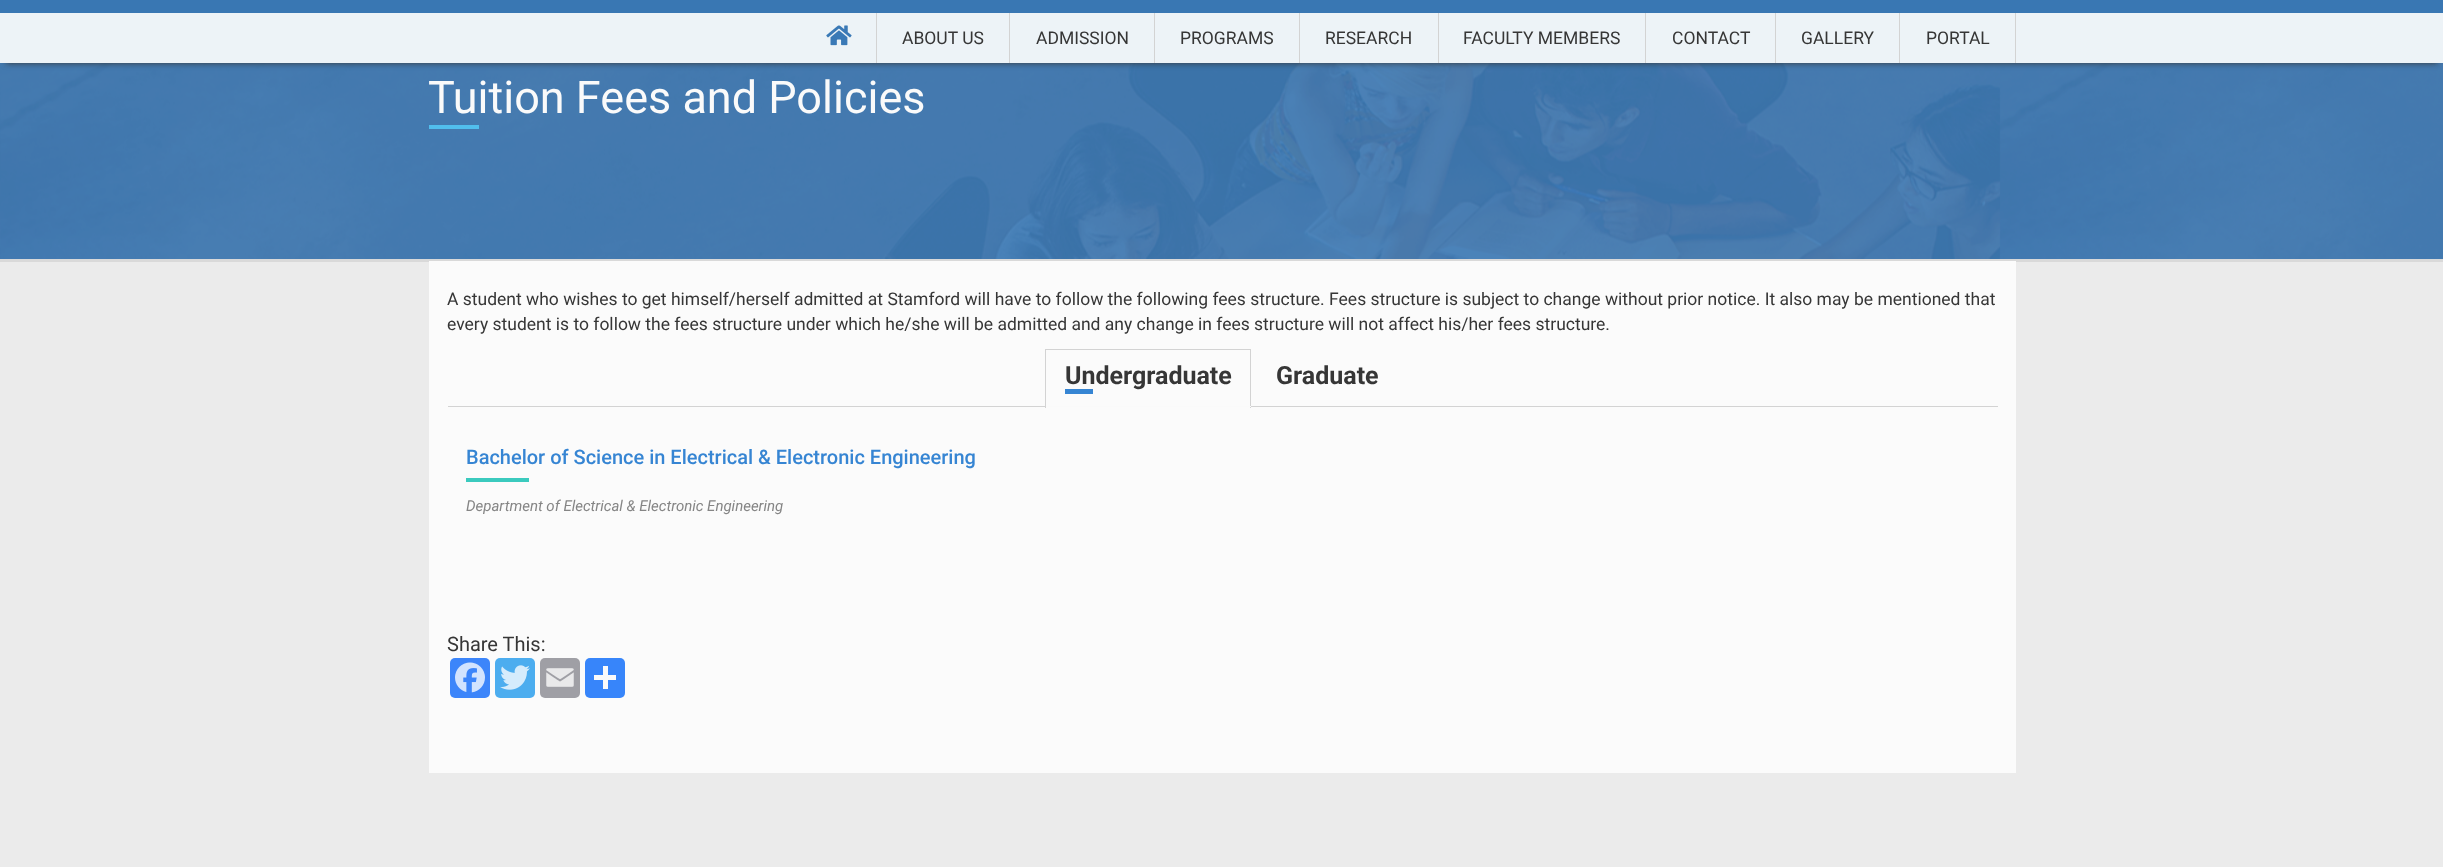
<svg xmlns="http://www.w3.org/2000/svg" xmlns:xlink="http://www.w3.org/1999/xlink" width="2443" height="867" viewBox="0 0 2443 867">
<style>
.cls-1{font:17.5px Roboto;fill:#363636}
.cls-2{font:45px Roboto;fill:#fafafa}
.cls-3{font:bold 25px Roboto;fill:#363636}
.cls-4{font:500 20px Roboto;fill:#3685d3}
.cls-5{font:italic 15px Roboto;fill:#858585}
.cls-6{font:20px Roboto;fill:#363636}
</style>
<rect width="100%" height="100%" fill="#ebebeb"/>
<image xlink:href="image1.png" x="0" y="63" width="2443" height="196"/>
<rect fill="#363636" filter="blur(3px)" x="6" y="13" width="2432" height="50"/>
<rect fill="#edf3f7" x="0" y="13" width="2443" height="50"/>
<rect fill="#3977b3" x="0" y="0" width="2443" height="13"/>
<rect fill="#d3d3d3" x="876" y="13" width="1" height="50"/>
<image xlink:href="image0.png" x="826" y="25" width="26" height="21"/>
<rect fill="#d3d3d3" x="1009" y="13" width="1" height="50"/>
<rect fill="#d3d3d3" x="1154" y="13" width="1" height="50"/>
<rect fill="#d3d3d3" x="1299" y="13" width="1" height="50"/>
<rect fill="#d3d3d3" x="1438" y="13" width="1" height="50"/>
<rect fill="#d3d3d3" x="1645" y="13" width="1" height="50"/>
<rect fill="#d3d3d3" x="1775" y="13" width="1" height="50"/>
<rect fill="#d3d3d3" x="1899" y="13" width="1" height="50"/>
<rect fill="#d3d3d3" x="2015" y="13" width="1" height="50"/>
<rect fill="#d9d9d9" x="0" y="259" width="2443" height="3"/>
<rect fill="#51beed" x="429" y="125" width="50" height="4"/>
<rect fill="#fbfbfb" x="429" y="261" width="1587" height="512"/>
<rect fill="#d3d3d3" x="1045" y="349" width="206" height="1"/>
<rect fill="#d3d3d3" x="448" y="406" width="1550" height="1"/>
<rect fill="#d3d3d3" x="1250" y="349" width="1" height="59"/>
<rect fill="#fafafa" x="1045" y="406" width="206" height="1"/>
<rect fill="#d3d3d3" x="1045" y="349" width="1" height="59"/>
<rect fill="#3bcabe" x="466" y="478" width="63" height="4"/>
<rect fill="#3c85fa" x="450" y="658" width="40" height="40" rx="5"/>
<image xlink:href="image2.png" x="455" y="662" width="30" height="31"/>
<rect fill="#4cadef" x="495" y="658" width="40" height="40" rx="5"/>
<image xlink:href="image3.png" x="500" y="665" width="30" height="25"/>
<rect fill="#9f9fa5" x="540" y="658" width="40" height="40" rx="5"/>
<image xlink:href="image4.png" x="546" y="668" width="28" height="19"/>
<rect fill="#3785fa" x="585" y="658" width="40" height="40" rx="5"/>
<rect fill="#fafafa" x="603" y="666" width="5" height="23"/>
<rect fill="#fafafa" x="594" y="675" width="22" height="5"/>
<text class="cls-1" x="902" y="44">ABOUT US</text>
<text class="cls-1" x="1036" y="44">ADMISSION</text>
<text class="cls-1" x="1180" y="44">PROGRAMS</text>
<text class="cls-1" x="1325" y="44">RESEARCH</text>
<text class="cls-1" x="1463" y="44">FACULTY MEMBERS</text>
<text class="cls-1" x="1672" y="44">CONTACT</text>
<text class="cls-1" x="1801" y="44">GALLERY</text>
<text class="cls-1" x="1926" y="44">PORTAL</text>
<text class="cls-2" x="428" y="113">Tuition Fees and Policies</text>
<text class="cls-1"><tspan x="447" y="305">A student who wishes to get himself/herself admitted at Stamford will have to follow the following fees structure. Fees structure is subject to change without prior notice. It also may be mentioned that</tspan><tspan x="447" y="330">every student is to follow the fees structure under which he/she will be admitted and any change in fees structure will not affect his/her fees structure.</tspan></text>
<text class="cls-3" x="1065" y="384">Undergraduate</text>
<rect fill="#3685d3" x="1065" y="389" width="28" height="5"/>
<text class="cls-3" x="1276" y="384">Graduate</text>
<text class="cls-4" x="466" y="464">Bachelor of Science in Electrical &amp; Electronic Engineering</text>
<text class="cls-5" x="466" y="511">Department of Electrical &amp; Electronic Engineering</text>
<text class="cls-6" x="447" y="651">Share This:</text>
</svg>
